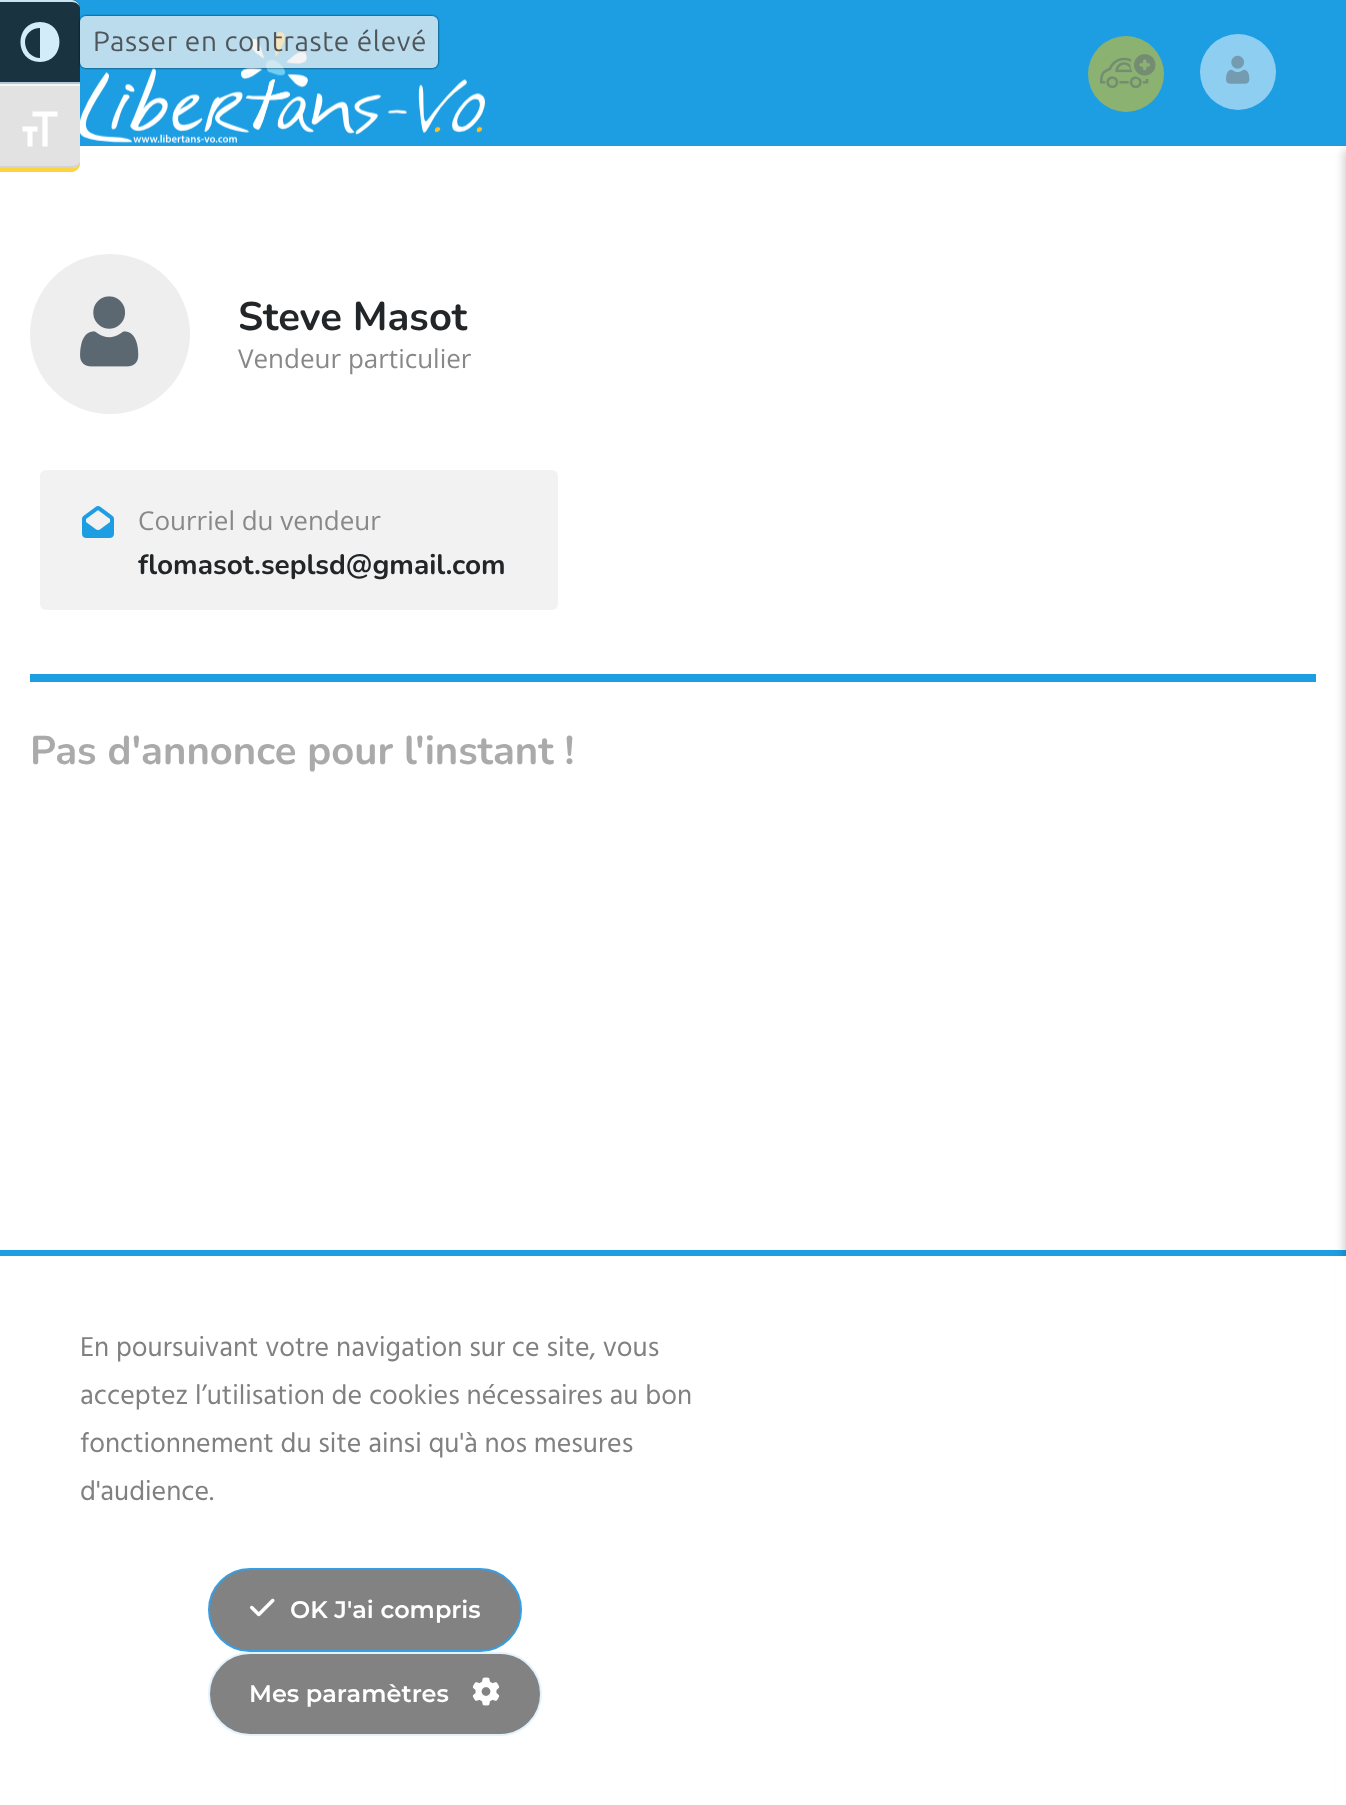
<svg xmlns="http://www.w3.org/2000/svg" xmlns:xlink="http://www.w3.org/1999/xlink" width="1346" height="1805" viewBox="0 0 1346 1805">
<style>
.cls-1{font:28px Ubuntu;letter-spacing:0.6px;fill:#4f5558}
.cls-2{font:bold 40px Nunito;fill:#232628}
.cls-3{font:26px Open Sans;fill:#888888}
.cls-4{font:bold 28px Nunito;fill:#232628}
.cls-5{font:bold 40px Nunito;fill:#aaaaaa}
.cls-6{font:28px Hind;fill:#808080}
.cls-7{font:600 24px Montserrat;fill:#ffffff}
</style>
<defs>
<clipPath id="clip1"><path d="M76 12H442V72H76ZM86 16H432C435.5 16 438 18.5 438 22V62C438 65.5 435.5 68 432 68H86C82.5 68 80 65.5 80 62V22C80 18.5 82.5 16 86 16Z" clip-rule="evenodd"/></clipPath>
</defs>
<rect width="100%" height="100%" fill="#ffffff"/>
<rect fill="#1d9ee3" x="72" y="0" width="1274" height="146"/>
<image xlink:href="image0.png" x="80" y="31" width="405" height="112"/>
<circle fill="#8cb272" cx="1126" cy="74" r="38"/>
<image xlink:href="image1.png" x="1100" y="54" width="56" height="35"/>
<circle fill="#8ecff1" cx="1238" cy="72" r="38"/>
<image xlink:href="image2.png" x="1226" y="55" width="24" height="29"/>
<rect fill="#1d9ee3" x="0" y="1250" width="1346" height="6"/>
<rect fill="#000000" fill-opacity="0.2" filter="blur(5px)" x="1344" y="150" width="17" height="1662"/>
<path fill="#193341" d="M0 0H72C76.5 0 80 3.5 80 8V84H0Z"/>
<path fill="#cae4f1" d="M0 0V2H72C76 2 80 5 80 8C80 4 76 0 72 0Z"/>
<rect fill="#aec8d5" x="0" y="82" width="80" height="2"/>
<path fill="#d2ecf9" d="M40 22C14 22 14 62 40 62C66 62 66 22 40 22ZM25 42C25 34 32 28 40 28V58C32 58 25 51 25 42Z"/>
<g clip-path="url(#clip1)">
<rect fill="#000000" fill-opacity="0.8" filter="blur(1px)" x="80" y="16" width="358" height="52" rx="6"/>
</g>
<rect fill="#f0f0f0" fill-opacity="0.75" x="80" y="16" width="358" height="52" rx="6"/>
<path fill="#fcd440" d="M0 168V172H72C76 172 80 168 80 164V160C80 164 76 168 72 168Z"/>
<path fill="#e2e2e2" d="M0 84H80V160C80 164.5 76.5 168 72 168H0Z"/>
<rect fill="#f5f5f5" x="0" y="84" width="80" height="2"/>
<path fill="#d2d2d2" d="M0 166V168H72C76 168 80 164 80 160C80 163 76 166 72 166Z"/>
<image xlink:href="image3.png" x="22" y="111" width="36" height="36"/>
<rect fill="#1d9ee3" x="30" y="674" width="1286" height="8"/>
<circle fill="#eeeeee" cx="110" cy="334" r="80"/>
<image xlink:href="image4.png" x="80" y="296" width="59" height="71"/>
<rect fill="#f2f2f2" x="40" y="470" width="518" height="140" rx="6"/>
<image xlink:href="image5.png" x="82" y="506" width="32" height="32"/>
<rect fill="#ffffff" x="1336" y="1256" width="10" height="549"/>
<rect fill="#828282" stroke="#369ee3" stroke-width="2" x="209" y="1569" width="312" height="82" rx="41"/>
<image xlink:href="image6.png" x="250" y="1598" width="25" height="19"/>
<rect fill="#828282" stroke="#e2f3ff" stroke-width="2" x="209" y="1653" width="332" height="82" rx="41"/>
<image xlink:href="image7.png" x="472" y="1677" width="28" height="29"/>
<text class="cls-1" x="93" y="51">Passer en contraste élevé</text>
<text class="cls-2" x="238" y="330">Steve Masot</text>
<text class="cls-3" x="238" y="368">Vendeur particulier</text>
<text class="cls-3" x="138" y="530">Courriel du vendeur</text>
<text class="cls-4" x="138" y="574">flomasot.seplsd@gmail.com</text>
<text class="cls-5" x="30" y="764">Pas d'annonce pour l'instant !</text>
<text class="cls-6"><tspan x="80" y="1356">En poursuivant votre navigation sur ce site, vous</tspan><tspan x="80" y="1404">acceptez l’utilisation de cookies nécessaires au bon</tspan><tspan x="80" y="1452">fonctionnement du site ainsi qu'à nos mesures</tspan><tspan x="80" y="1500">d'audience.</tspan></text>
<text class="cls-7" x="290" y="1618">OK J'ai compris</text>
<text class="cls-7" x="249" y="1702">Mes paramètres</text>
</svg>
